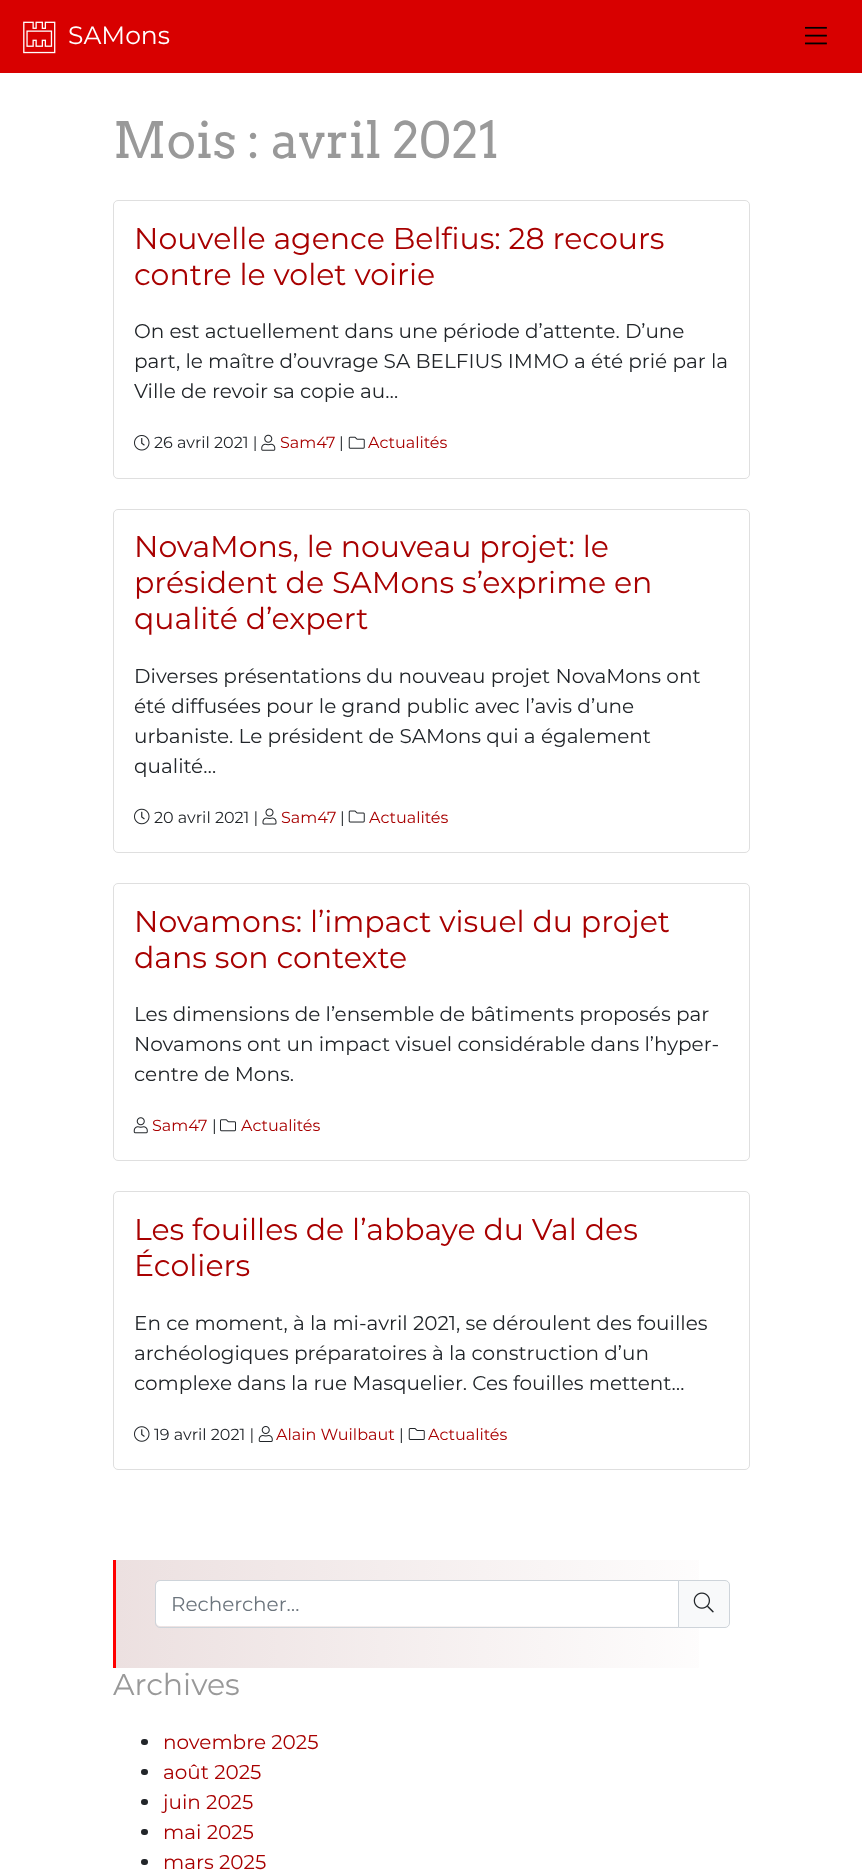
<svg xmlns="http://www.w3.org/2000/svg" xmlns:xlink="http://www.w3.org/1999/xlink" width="862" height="1871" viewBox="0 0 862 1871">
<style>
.cls-1{font:100 25px Montserrat;fill:#ffffff}
.cls-2{font:50px Arvo;fill:#999999}
.cls-3{font:100 30px Montserrat;fill:#a80000}
.cls-4{font:100 20px Montserrat;fill:#212529}
.cls-5{font:100 16px Montserrat;fill:#212529}
.cls-6{font:100 16px Montserrat;fill:#a80000}
.cls-7{font:100 20px Montserrat;fill:#6c757d}
.cls-8{font:100 30px Montserrat;fill:#999999}
.cls-9{font:100 20px Montserrat;fill:#a80000}
</style>
<defs>
<linearGradient id="g1" gradientUnits="userSpaceOnUse" x1="115" y1="1614" x2="750" y2="1614"><stop offset="0" stop-color="#ece0e0"/><stop offset="1" stop-color="#ffffff"/></linearGradient>
</defs>
<rect width="100%" height="100%" fill="#ffffff"/>
<rect fill="#d80000" x="0" y="0" width="862" height="73"/>
<image xlink:href="image0.png" x="23" y="21" width="33" height="33"/>
<image xlink:href="image1.png" x="805" y="26" width="22" height="19"/>
<rect fill="none" stroke="#dfdfdf" x="113.5" y="200.5" width="636" height="278" rx="4.5"/>
<image xlink:href="image2.png" x="134" y="435" width="16" height="16"/>
<image xlink:href="image3.png" x="261" y="434" width="15" height="17"/>
<image xlink:href="image4.png" x="348" y="436" width="17" height="13"/>
<rect fill="none" stroke="#dfdfdf" x="113.5" y="509.5" width="636" height="343" rx="4.5"/>
<image xlink:href="image5.png" x="134" y="808" width="16" height="17"/>
<image xlink:href="image6.png" x="262" y="808" width="15" height="17"/>
<image xlink:href="image7.png" x="348" y="810" width="17" height="13"/>
<rect fill="none" stroke="#dfdfdf" x="113.5" y="883.5" width="636" height="277" rx="4.5"/>
<image xlink:href="image8.png" x="133" y="1117" width="15" height="17"/>
<image xlink:href="image9.png" x="220" y="1119" width="16" height="13"/>
<rect fill="none" stroke="#dfdfdf" x="113.5" y="1191.5" width="636" height="278" rx="4.5"/>
<image xlink:href="image10.png" x="134" y="1426" width="16" height="16"/>
<image xlink:href="image11.png" x="258" y="1426" width="15" height="16"/>
<image xlink:href="image12.png" x="408" y="1428" width="17" height="12"/>
<rect fill="url(#g1)" x="116" y="1560" width="583" height="108"/>
<rect fill="#ff0000" x="113" y="1560" width="3" height="108"/>
<path fill="#ffffff" d="M160 1581H678V1626H160C158 1626 156 1624 156 1622V1585C156 1583 158 1581 160 1581Z"/>
<path fill="none" stroke="#ced4da" d="M160 1580.5H678.5V1627.5H160C157.5 1627.5 155.5 1625.5 155.5 1623V1585C155.5 1582.5 157.5 1580.5 160 1580.5Z"/>
<path fill="#f8f9fa" stroke="#ced4da" d="M678.5 1580.5H725C727.5 1580.5 729.5 1582.5 729.5 1585V1623C729.5 1625.5 727.5 1627.5 725 1627.5H678.5Z"/>
<image xlink:href="image13.png" x="693" y="1592" width="21" height="21"/>
<rect fill="#212529" x="141" y="1739" width="7" height="6" rx="3"/>
<rect fill="#212529" x="141" y="1769" width="7" height="6" rx="3"/>
<rect fill="#212529" x="141" y="1799" width="7" height="6" rx="3"/>
<rect fill="#212529" x="141" y="1829" width="7" height="6" rx="3"/>
<rect fill="#212529" x="141" y="1859" width="7" height="6" rx="3"/>
<text class="cls-1" x="68" y="44">SAMons</text>
<text class="cls-2" x="113" y="158">Mois : avril 2021</text>
<text class="cls-3"><tspan x="134" y="249">Nouvelle agence Belfius: 28 recours</tspan><tspan x="134" y="285">contre le volet voirie</tspan></text>
<text class="cls-4"><tspan x="134" y="338">On est actuellement dans une période d’attente. D’une</tspan><tspan x="134" y="368">part, le maître d’ouvrage SA BELFIUS IMMO a été prié par la</tspan><tspan x="134" y="398">Ville de revoir sa copie au…</tspan></text>
<text class="cls-5" x="154" y="448">26 avril 2021 |</text>
<text class="cls-6" x="280" y="448">Sam47</text>
<text class="cls-5" x="339" y="448">|</text>
<text class="cls-6" x="368" y="448">Actualités</text>
<text class="cls-3"><tspan x="134" y="557">NovaMons, le nouveau projet: le</tspan><tspan x="134" y="593">président de SAMons s’exprime en</tspan><tspan x="134" y="629">qualité d’expert</tspan></text>
<text class="cls-4"><tspan x="134" y="683">Diverses présentations du nouveau projet NovaMons ont</tspan><tspan x="134" y="713">été diffusées pour le grand public avec l’avis d’une</tspan><tspan x="134" y="743">urbaniste. Le président de SAMons qui a également</tspan><tspan x="134" y="773">qualité…</tspan></text>
<text class="cls-5" x="154" y="823">20 avril 2021 |</text>
<text class="cls-6" x="281" y="823">Sam47</text>
<text class="cls-5" x="340" y="823">|</text>
<text class="cls-6" x="369" y="823">Actualités</text>
<text class="cls-3"><tspan x="134" y="932">Novamons: l’impact visuel du projet</tspan><tspan x="134" y="968">dans son contexte</tspan></text>
<text class="cls-4"><tspan x="134" y="1021">Les dimensions de l’ensemble de bâtiments proposés par</tspan><tspan x="134" y="1051">Novamons ont un impact visuel considérable dans l’hyper-</tspan><tspan x="134" y="1081">centre de Mons.</tspan></text>
<text class="cls-6" x="152" y="1131">Sam47</text>
<text class="cls-5" x="212" y="1131">|</text>
<text class="cls-6" x="241" y="1131">Actualités</text>
<text class="cls-3"><tspan x="134" y="1240">Les fouilles de l’abbaye du Val des</tspan><tspan x="134" y="1276">Écoliers</tspan></text>
<text class="cls-4"><tspan x="134" y="1330">En ce moment, à la mi-avril 2021, se déroulent des fouilles</tspan><tspan x="134" y="1360">archéologiques préparatoires à la construction d’un</tspan><tspan x="134" y="1390">complexe dans la rue Masquelier. Ces fouilles mettent…</tspan></text>
<text class="cls-5" x="154" y="1440">19 avril 2021 |</text>
<text class="cls-6" x="276" y="1440">Alain Wuilbaut</text>
<text class="cls-5" x="399" y="1440">|</text>
<text class="cls-6" x="428" y="1440">Actualités</text>
<text class="cls-7" x="171" y="1611">Rechercher…</text>
<text class="cls-8" x="113" y="1695">Archives</text>
<text class="cls-9"><tspan x="163" y="1749">novembre 2025</tspan><tspan x="163" y="1779">août 2025</tspan><tspan x="163" y="1809">juin 2025</tspan><tspan x="163" y="1839">mai 2025</tspan><tspan x="163" y="1869">mars 2025</tspan></text>
</svg>
